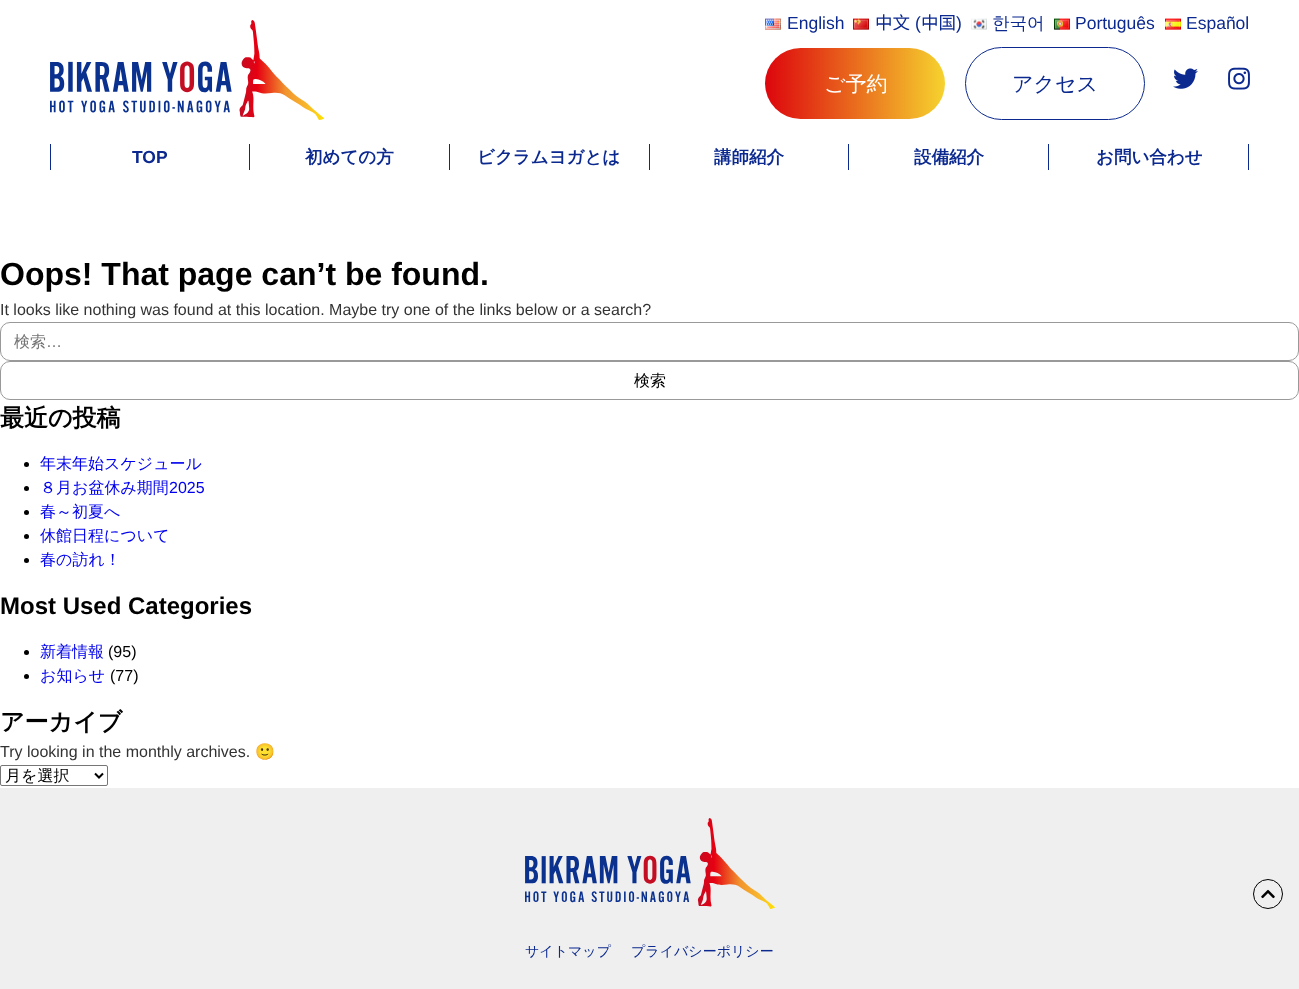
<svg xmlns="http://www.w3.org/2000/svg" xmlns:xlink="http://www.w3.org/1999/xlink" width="1299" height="989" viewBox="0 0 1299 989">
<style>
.cls-1{font:17.5px Liberation Sans;fill:#0b298f}
.cls-2{font:17.5px Noto Sans CJK SC;fill:#0b298f}
.cls-3{font:500 17.5px WenQuanYi Zen Hei;fill:#0b298f}
.cls-4{font:500 21px WenQuanYi Zen Hei;fill:#ffffff}
.cls-5{font:500 21px WenQuanYi Zen Hei;fill:#0b298f}
.cls-6{font:bold 17.5px Liberation Sans;fill:#0b298f}
.cls-7{font:bold 17.5px WenQuanYi Zen Hei;fill:#0b298f}
.cls-8{font:bold 32px Liberation Sans;fill:#000000}
.cls-9{font:16px Liberation Sans;fill:#333333}
.cls-10{font:500 16px WenQuanYi Zen Hei;fill:#757575}
.cls-11{font:16px Liberation Sans;fill:#757575}
.cls-12{font:500 16px WenQuanYi Zen Hei;fill:#000000}
.cls-13{font:bold 24px WenQuanYi Zen Hei;fill:#000000}
.cls-14{font:500 16px WenQuanYi Zen Hei;fill:#0000ee}
.cls-15{font:16px Liberation Sans;fill:#0000ee}
.cls-16{font:bold 24px Liberation Sans;fill:#000000}
.cls-17{font:16px Liberation Sans;fill:#000000}
.cls-18{font:16px Noto Color Emoji;fill:#333333}
.cls-19{font:500 14px WenQuanYi Zen Hei;fill:#0b298f}
</style>
<defs>
<linearGradient id="g1" gradientUnits="userSpaceOnUse" x1="765" y1="84" x2="945" y2="84"><stop offset="0" stop-color="#dd050d"/><stop offset="1" stop-color="#f6d32e"/></linearGradient>
</defs>
<rect width="100%" height="100%" fill="#ffffff"/>
<image xlink:href="image0.png" x="50" y="20" width="274" height="100"/>
<image xlink:href="image1.png" x="765" y="18" width="16" height="12"/>
<image xlink:href="image2.png" x="853" y="18" width="16" height="12"/>
<image xlink:href="image3.png" x="971" y="18" width="16" height="12"/>
<image xlink:href="image4.png" x="1054" y="18" width="16" height="12"/>
<image xlink:href="image5.png" x="1165" y="18" width="16" height="12"/>
<rect fill="url(#g1)" x="765" y="48" width="180" height="71" rx="35.5"/>
<rect fill="none" stroke="#0b298f" x="965.5" y="47.5" width="179" height="72" rx="36"/>
<image xlink:href="image6.png" x="1173" y="68" width="25" height="21"/>
<image xlink:href="image7.png" x="1228" y="67" width="22" height="23"/>
<rect fill="#0b298f" x="50" y="144" width="1" height="26"/>
<rect fill="#0b298f" x="249" y="144" width="1" height="26"/>
<rect fill="#0b298f" x="449" y="144" width="1" height="26"/>
<rect fill="#0b298f" x="649" y="144" width="1" height="26"/>
<rect fill="#0b298f" x="848" y="144" width="1" height="26"/>
<rect fill="#0b298f" x="1048" y="144" width="1" height="26"/>
<rect fill="#0b298f" x="1248" y="144" width="1" height="26"/>
<rect fill="none" stroke="#999999" x="0.5" y="322.5" width="1298" height="38" rx="9.5"/>
<rect fill="none" stroke="#999999" x="0.5" y="361.5" width="1298" height="38" rx="9.5"/>
<circle fill="#000000" cx="26.5" cy="464.5" r="2.5"/>
<circle fill="#000000" cx="26.5" cy="488.5" r="2.5"/>
<circle fill="#000000" cx="26.5" cy="512.5" r="2.5"/>
<circle fill="#000000" cx="26.5" cy="536.5" r="2.5"/>
<circle fill="#000000" cx="26.5" cy="560.5" r="2.5"/>
<circle fill="#000000" cx="26.5" cy="652.5" r="2.5"/>
<circle fill="#000000" cx="26.5" cy="676.5" r="2.5"/>
<rect fill="none" stroke="#767676" x="0.5" y="765.5" width="107" height="20" rx="1.5"/>
<path fill="none" stroke="#000000" stroke-width="2" d="M95 773.5L99 777.5L103 773.5"/>
<rect fill="#efefef" x="0" y="788" width="1299" height="201"/>
<image xlink:href="image8.png" x="525" y="818" width="250" height="91"/>
<circle fill="none" stroke="#000000" cx="1268" cy="894" r="14.5"/>
<image xlink:href="image9.png" x="1261" y="889" width="14" height="10"/>
<text class="cls-1" x="787" y="29">English</text>
<text class="cls-2" x="875" y="29">中文</text>
<text class="cls-1" x="915" y="29">(</text>
<text class="cls-2" x="921" y="29">中国</text>
<text class="cls-1" x="956" y="29">)</text>
<text class="cls-3" x="992" y="29">한국어</text>
<text class="cls-1" x="1075" y="29">Português</text>
<text class="cls-1" x="1186" y="29">Español</text>
<text class="cls-4" x="824" y="91">ご予約</text>
<text class="cls-5" x="1012" y="91">アクセス</text>
<text class="cls-6" x="132" y="163">TOP</text>
<text class="cls-7" x="305" y="163">初めての方</text>
<text class="cls-7" x="477" y="163">ビクラムヨガとは</text>
<text class="cls-7" x="714" y="163">講師紹介</text>
<text class="cls-7" x="914" y="163">設備紹介</text>
<text class="cls-7" x="1096" y="163">お問い合わせ</text>
<text class="cls-8" x="0" y="285">Oops! That page can’t be found.</text>
<text class="cls-9" x="0" y="315">It looks like nothing was found at this location. Maybe try one of the links below or a search?</text>
<text class="cls-10" x="14" y="347">検索</text>
<text class="cls-11" x="46" y="347">…</text>
<text class="cls-12" x="634" y="386">検索</text>
<text class="cls-13" x="0" y="426">最近の投稿</text>
<text class="cls-14"><tspan x="40" y="469">年末年始スケジュール</tspan><tspan x="40" y="493">８月お盆休み期間</tspan></text>
<text class="cls-15" x="169" y="493">2025</text>
<text class="cls-14"><tspan x="40" y="517">春～初夏へ</tspan><tspan x="40" y="541">休館日程について</tspan><tspan x="40" y="565">春の訪れ！</tspan></text>
<text class="cls-16" x="0" y="614">Most Used Categories</text>
<text class="cls-14" x="40" y="657">新着情報</text>
<text class="cls-17" x="108" y="657">(95)</text>
<text class="cls-14" x="40" y="681">お知らせ</text>
<text class="cls-17" x="110" y="681">(77)</text>
<text class="cls-13" x="0" y="730">アーカイブ</text>
<text class="cls-9" x="0" y="757">Try looking in the monthly archives.</text>
<text class="cls-18" x="255" y="757">🙂</text>
<text class="cls-12" x="5" y="781">月を選択</text>
<text class="cls-19" x="525" y="956">サイトマップ</text>
<text class="cls-19" x="631" y="956">プライバシーポリシー</text>
</svg>
